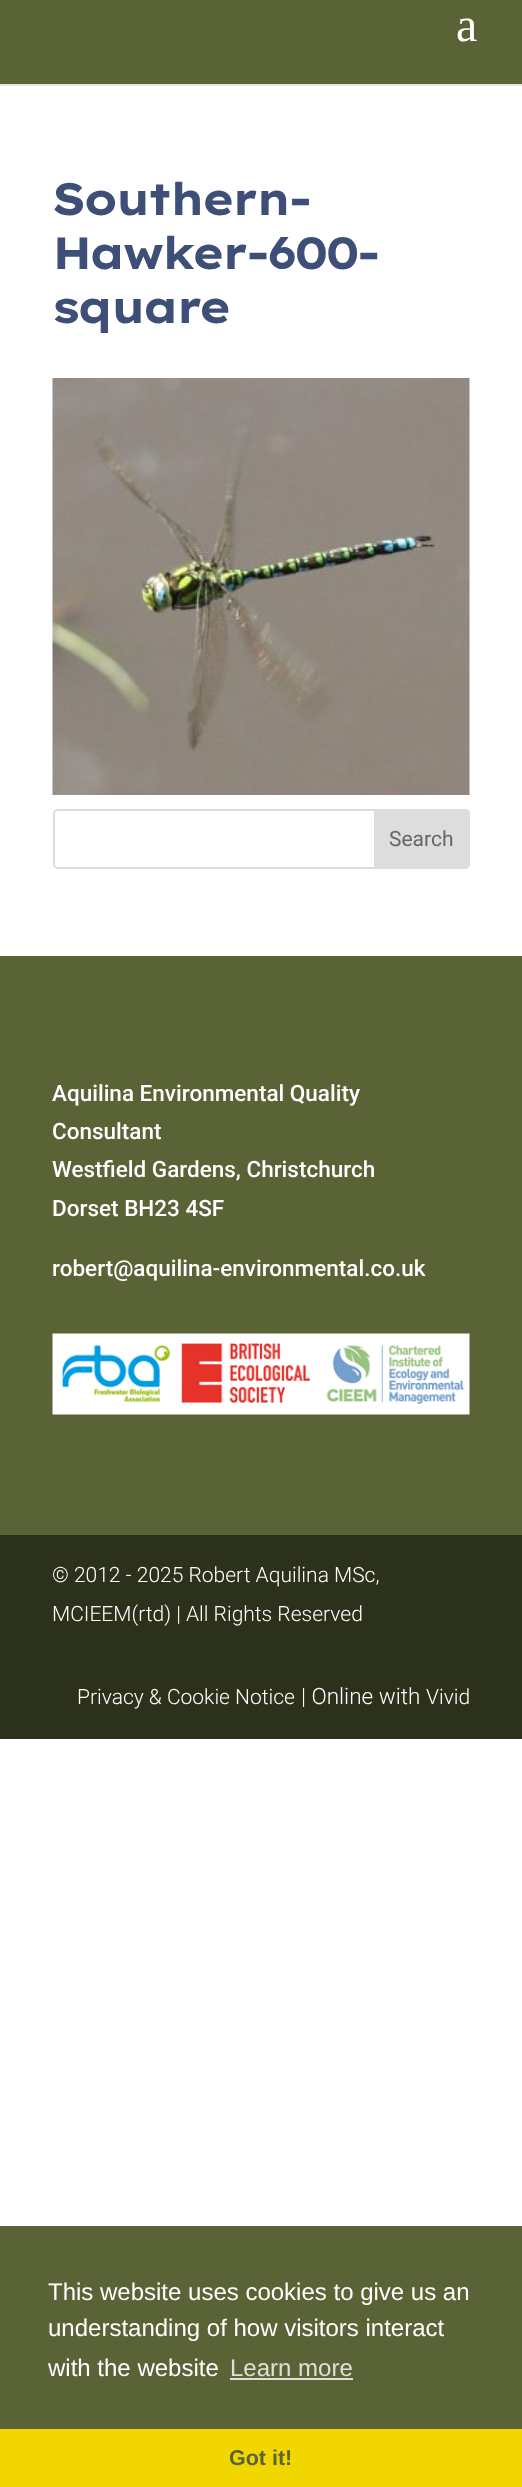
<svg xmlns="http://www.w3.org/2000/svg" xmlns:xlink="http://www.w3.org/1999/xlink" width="522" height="2487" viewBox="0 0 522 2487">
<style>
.cls-1{font:48px Liberation Serif;fill:#ffffff}
.cls-2{font:bold 45px Lexend Exa;letter-spacing:-3px;fill:#3d4f77}
.cls-3{font:21px Roboto;fill:#666666}
.cls-4{font:500 22.5px Roboto;fill:#ffffff}
.cls-5{font:300 21px Roboto;fill:#ffffff}
.cls-6{font:300 22.5px Roboto;fill:#ffffff}
.cls-7{font:24px Liberation Sans;fill:#ffffff}
.cls-8{font:24px Liberation Sans;fill:#dee0d7}
.cls-9{font:bold 21.5px Liberation Sans;fill:#596336}
</style>
<rect width="100%" height="100%" fill="#ffffff"/>
<rect fill="#e6e6e6" x="0" y="84" width="522" height="2"/>
<rect fill="#596336" x="0" y="0" width="522" height="84"/>
<image xlink:href="image0.png" x="52" y="378" width="418" height="417"/>
<rect fill="none" stroke="#dddddd" stroke-width="2" x="54" y="810" width="415" height="58" rx="4"/>
<path fill="#dddddd" stroke="#dddddd" stroke-width="2" d="M375 810H465C467 810 469 812 469 814V864C469 866 467 868 465 868H375Z"/>
<rect fill="#596336" x="0" y="956" width="522" height="579"/>
<image xlink:href="image1.png" x="52" y="1333" width="418" height="82"/>
<rect fill="#2c311b" x="0" y="1535" width="522" height="204"/>
<rect fill="#596336" x="0" y="2226" width="522" height="203"/>
<rect fill="#dee0d7" x="230" y="2378" width="123" height="2"/>
<rect fill="#f1d600" x="0" y="2429" width="522" height="58"/>
<text class="cls-1" x="456" y="41">a</text>
<text class="cls-2"><tspan x="52" y="215">Southern-</tspan><tspan x="52" y="269">Hawker-600-</tspan><tspan x="52" y="323">square</tspan></text>
<text class="cls-3" x="389" y="846">Search</text>
<text class="cls-4"><tspan x="52" y="1101">Aquilina Environmental Quality</tspan><tspan x="52" y="1139">Consultant</tspan><tspan x="52" y="1177">Westfield Gardens, Christchurch</tspan><tspan x="52" y="1216">Dorset BH23 4SF</tspan></text>
<text class="cls-4" x="52" y="1276">robert@aquilina-environmental.co.uk</text>
<text class="cls-5"><tspan x="52" y="1582">© 2012 - 2025 Robert Aquilina MSc,</tspan><tspan x="52" y="1621">MCIEEM(rtd) | All Rights Reserved</tspan></text>
<text class="cls-5" x="77" y="1704">Privacy &amp; Cookie Notice</text>
<text class="cls-6" x="301" y="1704">| Online with</text>
<text class="cls-5" x="426" y="1704">Vivid</text>
<text class="cls-7"><tspan x="48" y="2300">This website uses cookies to give us an</tspan><tspan x="48" y="2336">understanding of how visitors interact</tspan><tspan x="48" y="2376">with the website</tspan></text>
<text class="cls-8" x="230" y="2376">Learn more</text>
<text class="cls-9" x="229" y="2465">Got it!</text>
</svg>
